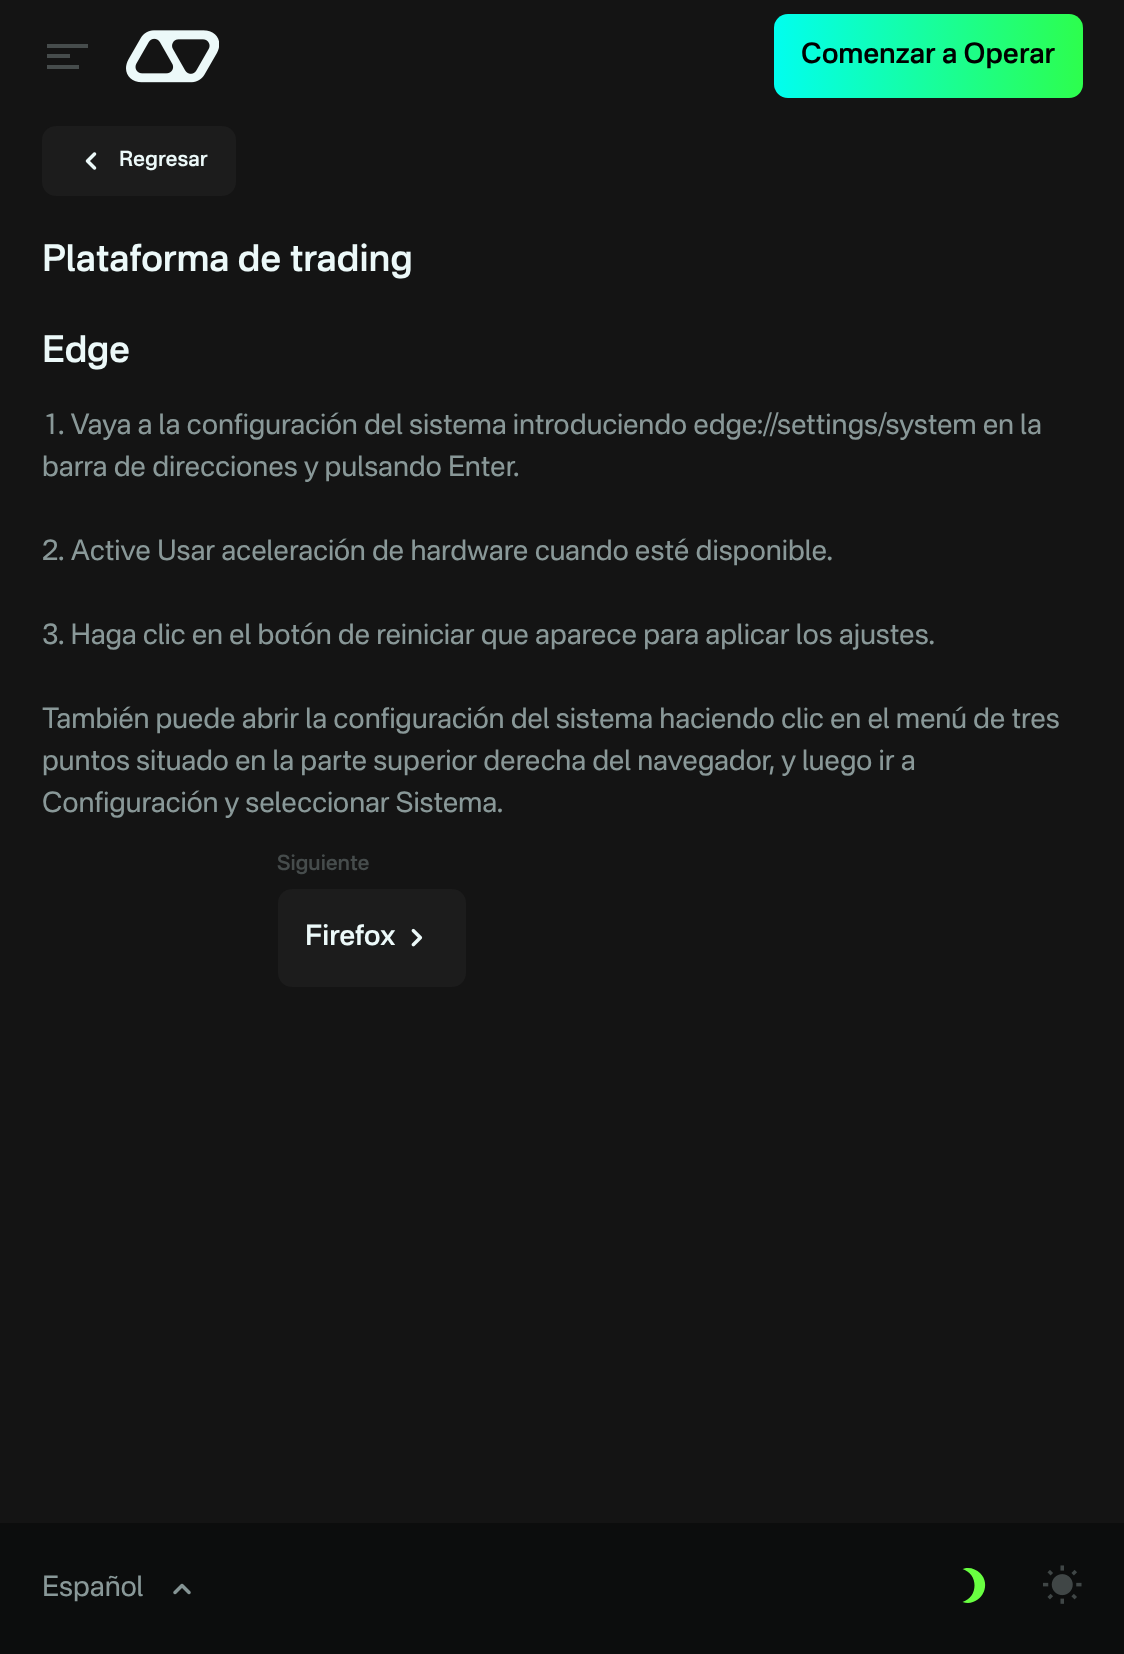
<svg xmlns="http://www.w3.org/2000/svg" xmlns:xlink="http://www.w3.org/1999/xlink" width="1124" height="1654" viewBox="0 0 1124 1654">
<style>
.cls-1{font:600 28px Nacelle;fill:#000000}
.cls-2{font:600 21px Nacelle;fill:#ecf9f9}
.cls-3{font:600 36.75px Nacelle;fill:#ecf9f9}
.cls-4{font:28px Nacelle;fill:#899898}
.cls-5{font:600 21px Nacelle;fill:#464c4c}
.cls-6{font:600 28px Nacelle;fill:#ecf9f9}
</style>
<defs>
<linearGradient id="g1" gradientUnits="userSpaceOnUse" x1="774" y1="56" x2="1083" y2="56"><stop offset="0" stop-color="#01feef"/><stop offset="1" stop-color="#2dfe4d"/></linearGradient>
</defs>
<rect width="100%" height="100%" fill="#141414"/>
<rect fill="#464c4c" x="47" y="44" width="41" height="4"/>
<rect fill="#464c4c" x="47" y="54" width="23" height="4"/>
<rect fill="#464c4c" x="47" y="65" width="32" height="4"/>
<image xlink:href="image0.png" x="126" y="30" width="93" height="53"/>
<rect fill="url(#g1)" x="774" y="14" width="309" height="84" rx="14"/>
<rect fill="#1c1c1c" x="42" y="126" width="194" height="70" rx="14"/>
<image xlink:href="image1.png" x="85" y="152" width="12" height="18"/>
<rect fill="#1c1c1c" x="278" y="889" width="188" height="98" rx="14"/>
<image xlink:href="image2.png" x="411" y="928" width="12" height="19"/>
<rect fill="#0c0d0d" x="0" y="1523" width="1124" height="131"/>
<image xlink:href="image3.png" x="173" y="1583" width="18" height="12"/>
<path fill="#69ff41" d="M968 1568C966 1568 964 1568.5 962.5 1569C978.5 1574 978.5 1597 962.5 1602C979.5 1607.5 993 1586 980 1573C977 1570 972.5 1568 968 1568Z"/>
<image xlink:href="image4.png" x="1043" y="1565" width="39" height="39"/>
<text class="cls-1" x="801" y="63">Comenzar a Operar</text>
<text class="cls-2" x="119" y="166">Regresar</text>
<text class="cls-3" x="42" y="271">Plataforma de trading</text>
<text class="cls-3" x="42" y="362">Edge</text>
<text class="cls-4"><tspan x="42" y="434">1. Vaya a la configuración del sistema introduciendo edge://settings/system en la</tspan><tspan x="42" y="476">barra de direcciones y pulsando Enter.</tspan></text>
<text class="cls-4" x="42" y="560">2. Active Usar aceleración de hardware cuando esté disponible.</text>
<text class="cls-4" x="42" y="644">3. Haga clic en el botón de reiniciar que aparece para aplicar los ajustes.</text>
<text class="cls-4"><tspan x="42" y="728">También puede abrir la configuración del sistema haciendo clic en el menú de tres</tspan><tspan x="42" y="770">puntos situado en la parte superior derecha del navegador, y luego ir a</tspan><tspan x="42" y="812">Configuración y seleccionar Sistema.</tspan></text>
<text class="cls-5" x="277" y="870">Siguiente</text>
<text class="cls-6" x="305" y="945">Firefox</text>
<text class="cls-4" x="42" y="1596">Español</text>
</svg>
